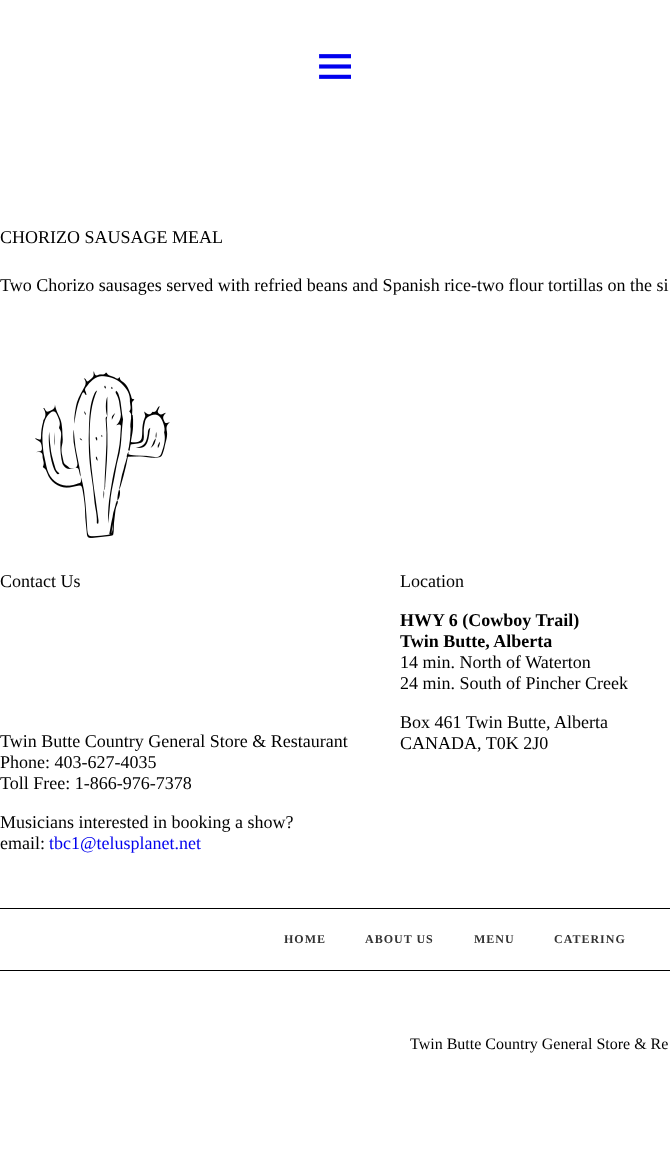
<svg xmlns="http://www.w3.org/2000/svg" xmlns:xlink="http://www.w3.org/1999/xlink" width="670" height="1174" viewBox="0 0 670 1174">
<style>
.cls-1{font:18px Liberation Serif;fill:#000000}
.cls-2{font:18px Liberation Serif;fill:#0000ee}
.cls-3{font:bold 18px Liberation Serif;fill:#000000}
.cls-4{font:bold 12px Liberation Serif;letter-spacing:1px;fill:#333333}
.cls-5{font:16px Liberation Serif;fill:#000000}
</style>
<rect width="100%" height="100%" fill="#ffffff"/>
<image xlink:href="image0.png" x="319" y="54" width="32" height="25"/>
<image xlink:href="image1.png" x="35" y="371" width="135" height="167"/>
<rect fill="#000000" x="0" y="908" width="670" height="1"/>
<rect fill="#000000" x="0" y="970" width="670" height="1"/>
<text class="cls-1" x="0" y="243">CHORIZO SAUSAGE MEAL</text>
<text class="cls-1" x="0" y="291">Two Chorizo sausages served with refried beans and Spanish rice-two flour tortillas on the si</text>
<text class="cls-1" x="0" y="587">Contact Us</text>
<text class="cls-1"><tspan x="0" y="747">Twin Butte Country General Store &amp; Restaurant</tspan><tspan x="0" y="768">Phone: 403-627-4035</tspan><tspan x="0" y="789">Toll Free: 1-866-976-7378</tspan></text>
<text class="cls-1"><tspan x="0" y="828">Musicians interested in booking a show?</tspan><tspan x="0" y="849">email:</tspan></text>
<text class="cls-2" x="49" y="849">tbc1@telusplanet.net</text>
<text class="cls-1" x="400" y="587">Location</text>
<text class="cls-3"><tspan x="400" y="626">HWY 6 (Cowboy Trail)</tspan><tspan x="400" y="647">Twin Butte, Alberta</tspan></text>
<text class="cls-1"><tspan x="400" y="668">14 min. North of Waterton</tspan><tspan x="400" y="689">24 min. South of Pincher Creek</tspan></text>
<text class="cls-1"><tspan x="400" y="728">Box 461 Twin Butte, Alberta</tspan><tspan x="400" y="749">CANADA, T0K 2J0</tspan></text>
<text class="cls-4" x="284" y="943">HOME</text>
<text class="cls-4" x="365" y="943">ABOUT US</text>
<text class="cls-4" x="474" y="943">MENU</text>
<text class="cls-4" x="554" y="943">CATERING</text>
<text class="cls-5" x="410" y="1049">Twin Butte Country General Store &amp; Re</text>
</svg>
